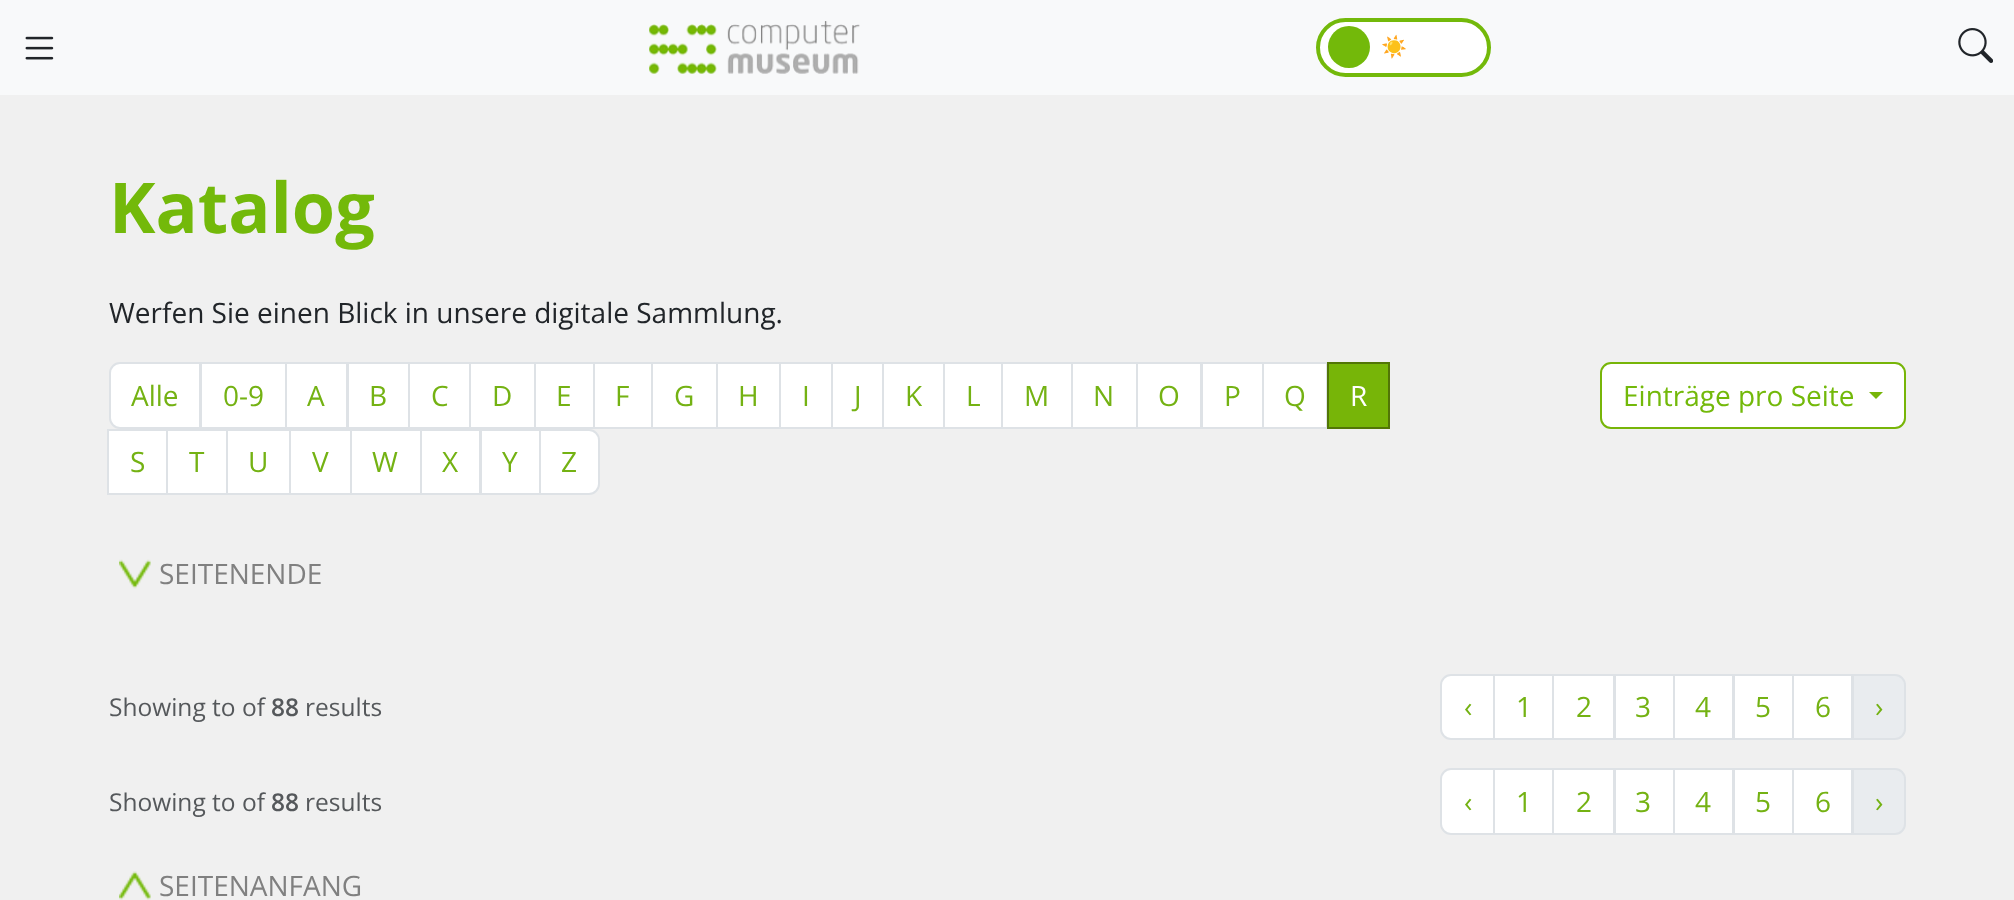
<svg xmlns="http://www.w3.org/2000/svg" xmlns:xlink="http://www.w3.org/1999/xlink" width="2014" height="900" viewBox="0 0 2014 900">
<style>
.cls-1{font:21px Noto Color Emoji;fill:#73b90a}
.cls-2{font:bold 70px Open Sans;fill:#73b90a}
.cls-3{font:28px Open Sans;fill:#212529}
.cls-4{font:28px Open Sans;fill:#74b213}
.cls-5{font:28px Open Sans;fill:#ffffff}
.cls-6{font:28px Open Sans;fill:#73b90a}
.cls-7{font:28px Open Sans;fill:#808080}
.cls-8{font:24.5px Open Sans;fill:#55585b}
.cls-9{font:600 24.5px Open Sans;fill:#55585b}
</style>
<rect width="100%" height="100%" fill="#f0f0f0"/>
<rect fill="#f8f9fa" x="0" y="0" width="2014" height="95"/>
<image xlink:href="image0.png" x="25" y="36" width="29" height="24"/>
<image xlink:href="image1.png" x="649" y="21" width="211" height="53"/>
<rect fill="#ffffff" stroke="#73b90a" stroke-width="4" x="1318" y="20" width="171" height="55" rx="27.5"/>
<circle fill="#73b90a" cx="1349" cy="47" r="21"/>
<image xlink:href="image2.png" x="1958" y="28" width="35" height="35"/>
<path fill="#ffffff" stroke="#dee2e6" stroke-width="2" d="M120 363H200V428H120C114.5 428 110 423.5 110 418V373C110 367.5 114.5 363 120 363Z"/>
<rect fill="#ffffff" stroke="#dee2e6" stroke-width="2" x="201" y="363" width="85" height="65"/>
<rect fill="#ffffff" stroke="#dee2e6" stroke-width="2" x="286" y="363" width="61" height="65"/>
<rect fill="#ffffff" stroke="#dee2e6" stroke-width="2" x="348" y="363" width="61" height="65"/>
<rect fill="#ffffff" stroke="#dee2e6" stroke-width="2" x="409" y="363" width="61" height="65"/>
<rect fill="#ffffff" stroke="#dee2e6" stroke-width="2" x="470" y="363" width="65" height="65"/>
<rect fill="#ffffff" stroke="#dee2e6" stroke-width="2" x="535" y="363" width="59" height="65"/>
<rect fill="#ffffff" stroke="#dee2e6" stroke-width="2" x="594" y="363" width="58" height="65"/>
<rect fill="#ffffff" stroke="#dee2e6" stroke-width="2" x="652" y="363" width="65" height="65"/>
<rect fill="#ffffff" stroke="#dee2e6" stroke-width="2" x="717" y="363" width="63" height="65"/>
<rect fill="#ffffff" stroke="#dee2e6" stroke-width="2" x="780" y="363" width="52" height="65"/>
<rect fill="#ffffff" stroke="#dee2e6" stroke-width="2" x="832" y="363" width="51" height="65"/>
<rect fill="#ffffff" stroke="#dee2e6" stroke-width="2" x="883" y="363" width="61" height="65"/>
<rect fill="#ffffff" stroke="#dee2e6" stroke-width="2" x="944" y="363" width="58" height="65"/>
<rect fill="#ffffff" stroke="#dee2e6" stroke-width="2" x="1002" y="363" width="70" height="65"/>
<rect fill="#ffffff" stroke="#dee2e6" stroke-width="2" x="1072" y="363" width="65" height="65"/>
<rect fill="#ffffff" stroke="#dee2e6" stroke-width="2" x="1137" y="363" width="64" height="65"/>
<rect fill="#ffffff" stroke="#dee2e6" stroke-width="2" x="1202" y="363" width="61" height="65"/>
<rect fill="#ffffff" stroke="#dee2e6" stroke-width="2" x="1263" y="363" width="64" height="65"/>
<rect fill="#77b508" stroke="#527606" stroke-width="2" x="1328" y="363" width="61" height="65"/>
<rect fill="#ffffff" stroke="#dee2e6" stroke-width="2" x="108" y="430" width="59" height="64"/>
<rect fill="#ffffff" stroke="#dee2e6" stroke-width="2" x="167" y="430" width="60" height="64"/>
<rect fill="#ffffff" stroke="#dee2e6" stroke-width="2" x="227" y="430" width="63" height="64"/>
<rect fill="#ffffff" stroke="#dee2e6" stroke-width="2" x="290" y="430" width="61" height="64"/>
<rect fill="#ffffff" stroke="#dee2e6" stroke-width="2" x="351" y="430" width="70" height="64"/>
<rect fill="#ffffff" stroke="#dee2e6" stroke-width="2" x="421" y="430" width="59" height="64"/>
<rect fill="#ffffff" stroke="#dee2e6" stroke-width="2" x="481" y="430" width="59" height="64"/>
<path fill="#ffffff" stroke="#dee2e6" stroke-width="2" d="M540 430H589C594.5 430 599 434.5 599 440V484C599 489.5 594.5 494 589 494H540Z"/>
<rect fill="#ffffff" stroke="#77b508" stroke-width="2" x="1601" y="363" width="304" height="65" rx="10"/>
<path fill="#77b508" d="M1869 392H1883L1876 399Z"/>
<image xlink:href="image3.png" x="119" y="559" width="32" height="30"/>
<path fill="#ffffff" stroke="#dee2e6" stroke-width="2" d="M1451 675H1494V739H1451C1445.5 739 1441 734.5 1441 729V685C1441 679.5 1445.5 675 1451 675Z"/>
<rect fill="#ffffff" stroke="#dee2e6" stroke-width="2" x="1494" y="675" width="59" height="64"/>
<rect fill="#ffffff" stroke="#dee2e6" stroke-width="2" x="1553" y="675" width="61" height="64"/>
<rect fill="#ffffff" stroke="#dee2e6" stroke-width="2" x="1615" y="675" width="59" height="64"/>
<rect fill="#ffffff" stroke="#dee2e6" stroke-width="2" x="1674" y="675" width="59" height="64"/>
<rect fill="#ffffff" stroke="#dee2e6" stroke-width="2" x="1734" y="675" width="59" height="64"/>
<rect fill="#ffffff" stroke="#dee2e6" stroke-width="2" x="1793" y="675" width="59" height="64"/>
<path fill="#e9ecef" stroke="#dee2e6" stroke-width="2" d="M1853 675H1895C1900.5 675 1905 679.5 1905 685V729C1905 734.5 1900.5 739 1895 739H1853Z"/>
<path fill="#ffffff" stroke="#dee2e6" stroke-width="2" d="M1451 769H1494V834H1451C1445.5 834 1441 829.5 1441 824V779C1441 773.5 1445.5 769 1451 769Z"/>
<rect fill="#ffffff" stroke="#dee2e6" stroke-width="2" x="1494" y="769" width="59" height="65"/>
<rect fill="#ffffff" stroke="#dee2e6" stroke-width="2" x="1553" y="769" width="61" height="65"/>
<rect fill="#ffffff" stroke="#dee2e6" stroke-width="2" x="1615" y="769" width="59" height="65"/>
<rect fill="#ffffff" stroke="#dee2e6" stroke-width="2" x="1674" y="769" width="59" height="65"/>
<rect fill="#ffffff" stroke="#dee2e6" stroke-width="2" x="1734" y="769" width="59" height="65"/>
<rect fill="#ffffff" stroke="#dee2e6" stroke-width="2" x="1793" y="769" width="59" height="65"/>
<path fill="#e9ecef" stroke="#dee2e6" stroke-width="2" d="M1853 769H1895C1900.5 769 1905 773.5 1905 779V824C1905 829.5 1900.5 834 1895 834H1853Z"/>
<image xlink:href="image4.png" x="119" y="871" width="32" height="29"/>
<text class="cls-1" x="1381" y="54">☀️</text>
<text class="cls-2" x="109" y="233">Katalog</text>
<text class="cls-3" x="109" y="323">Werfen Sie einen Blick in unsere digitale Sammlung.</text>
<text class="cls-4" x="131" y="406">Alle</text>
<text class="cls-4" x="223" y="406">0-9</text>
<text class="cls-4" x="307" y="406">A</text>
<text class="cls-4" x="369" y="406">B</text>
<text class="cls-4" x="431" y="406">C</text>
<text class="cls-4" x="492" y="406">D</text>
<text class="cls-4" x="556" y="406">E</text>
<text class="cls-4" x="615" y="406">F</text>
<text class="cls-4" x="674" y="406">G</text>
<text class="cls-4" x="738" y="406">H</text>
<text class="cls-4" x="802" y="406">I</text>
<text class="cls-4" x="854" y="406">J</text>
<text class="cls-4" x="905" y="406">K</text>
<text class="cls-4" x="966" y="406">L</text>
<text class="cls-4" x="1024" y="406">M</text>
<text class="cls-4" x="1093" y="406">N</text>
<text class="cls-4" x="1158" y="406">O</text>
<text class="cls-4" x="1224" y="406">P</text>
<text class="cls-4" x="1284" y="406">Q</text>
<text class="cls-5" x="1350" y="406">R</text>
<text class="cls-4" x="130" y="472">S</text>
<text class="cls-4" x="189" y="472">T</text>
<text class="cls-4" x="248" y="472">U</text>
<text class="cls-4" x="312" y="472">V</text>
<text class="cls-4" x="372" y="472">W</text>
<text class="cls-4" x="442" y="472">X</text>
<text class="cls-4" x="502" y="472">Y</text>
<text class="cls-4" x="561" y="472">Z</text>
<text class="cls-6" x="1623" y="406">Einträge pro Seite</text>
<text class="cls-7" x="159" y="584">SEITENENDE</text>
<text class="cls-8" x="109" y="716">Showing to of</text>
<text class="cls-9" x="271" y="716">88</text>
<text class="cls-8" x="305" y="716">results</text>
<text class="cls-4" x="1464" y="717">‹</text>
<text class="cls-4" x="1516" y="717">1</text>
<text class="cls-4" x="1576" y="717">2</text>
<text class="cls-4" x="1635" y="717">3</text>
<text class="cls-4" x="1695" y="717">4</text>
<text class="cls-4" x="1755" y="717">5</text>
<text class="cls-4" x="1815" y="717">6</text>
<text class="cls-4" x="1875" y="717">›</text>
<text class="cls-8" x="109" y="811">Showing to of</text>
<text class="cls-9" x="271" y="811">88</text>
<text class="cls-8" x="305" y="811">results</text>
<text class="cls-4" x="1464" y="812">‹</text>
<text class="cls-4" x="1516" y="812">1</text>
<text class="cls-4" x="1576" y="812">2</text>
<text class="cls-4" x="1635" y="812">3</text>
<text class="cls-4" x="1695" y="812">4</text>
<text class="cls-4" x="1755" y="812">5</text>
<text class="cls-4" x="1815" y="812">6</text>
<text class="cls-4" x="1875" y="812">›</text>
<text class="cls-7" x="159" y="896">SEITENANFANG</text>
</svg>
